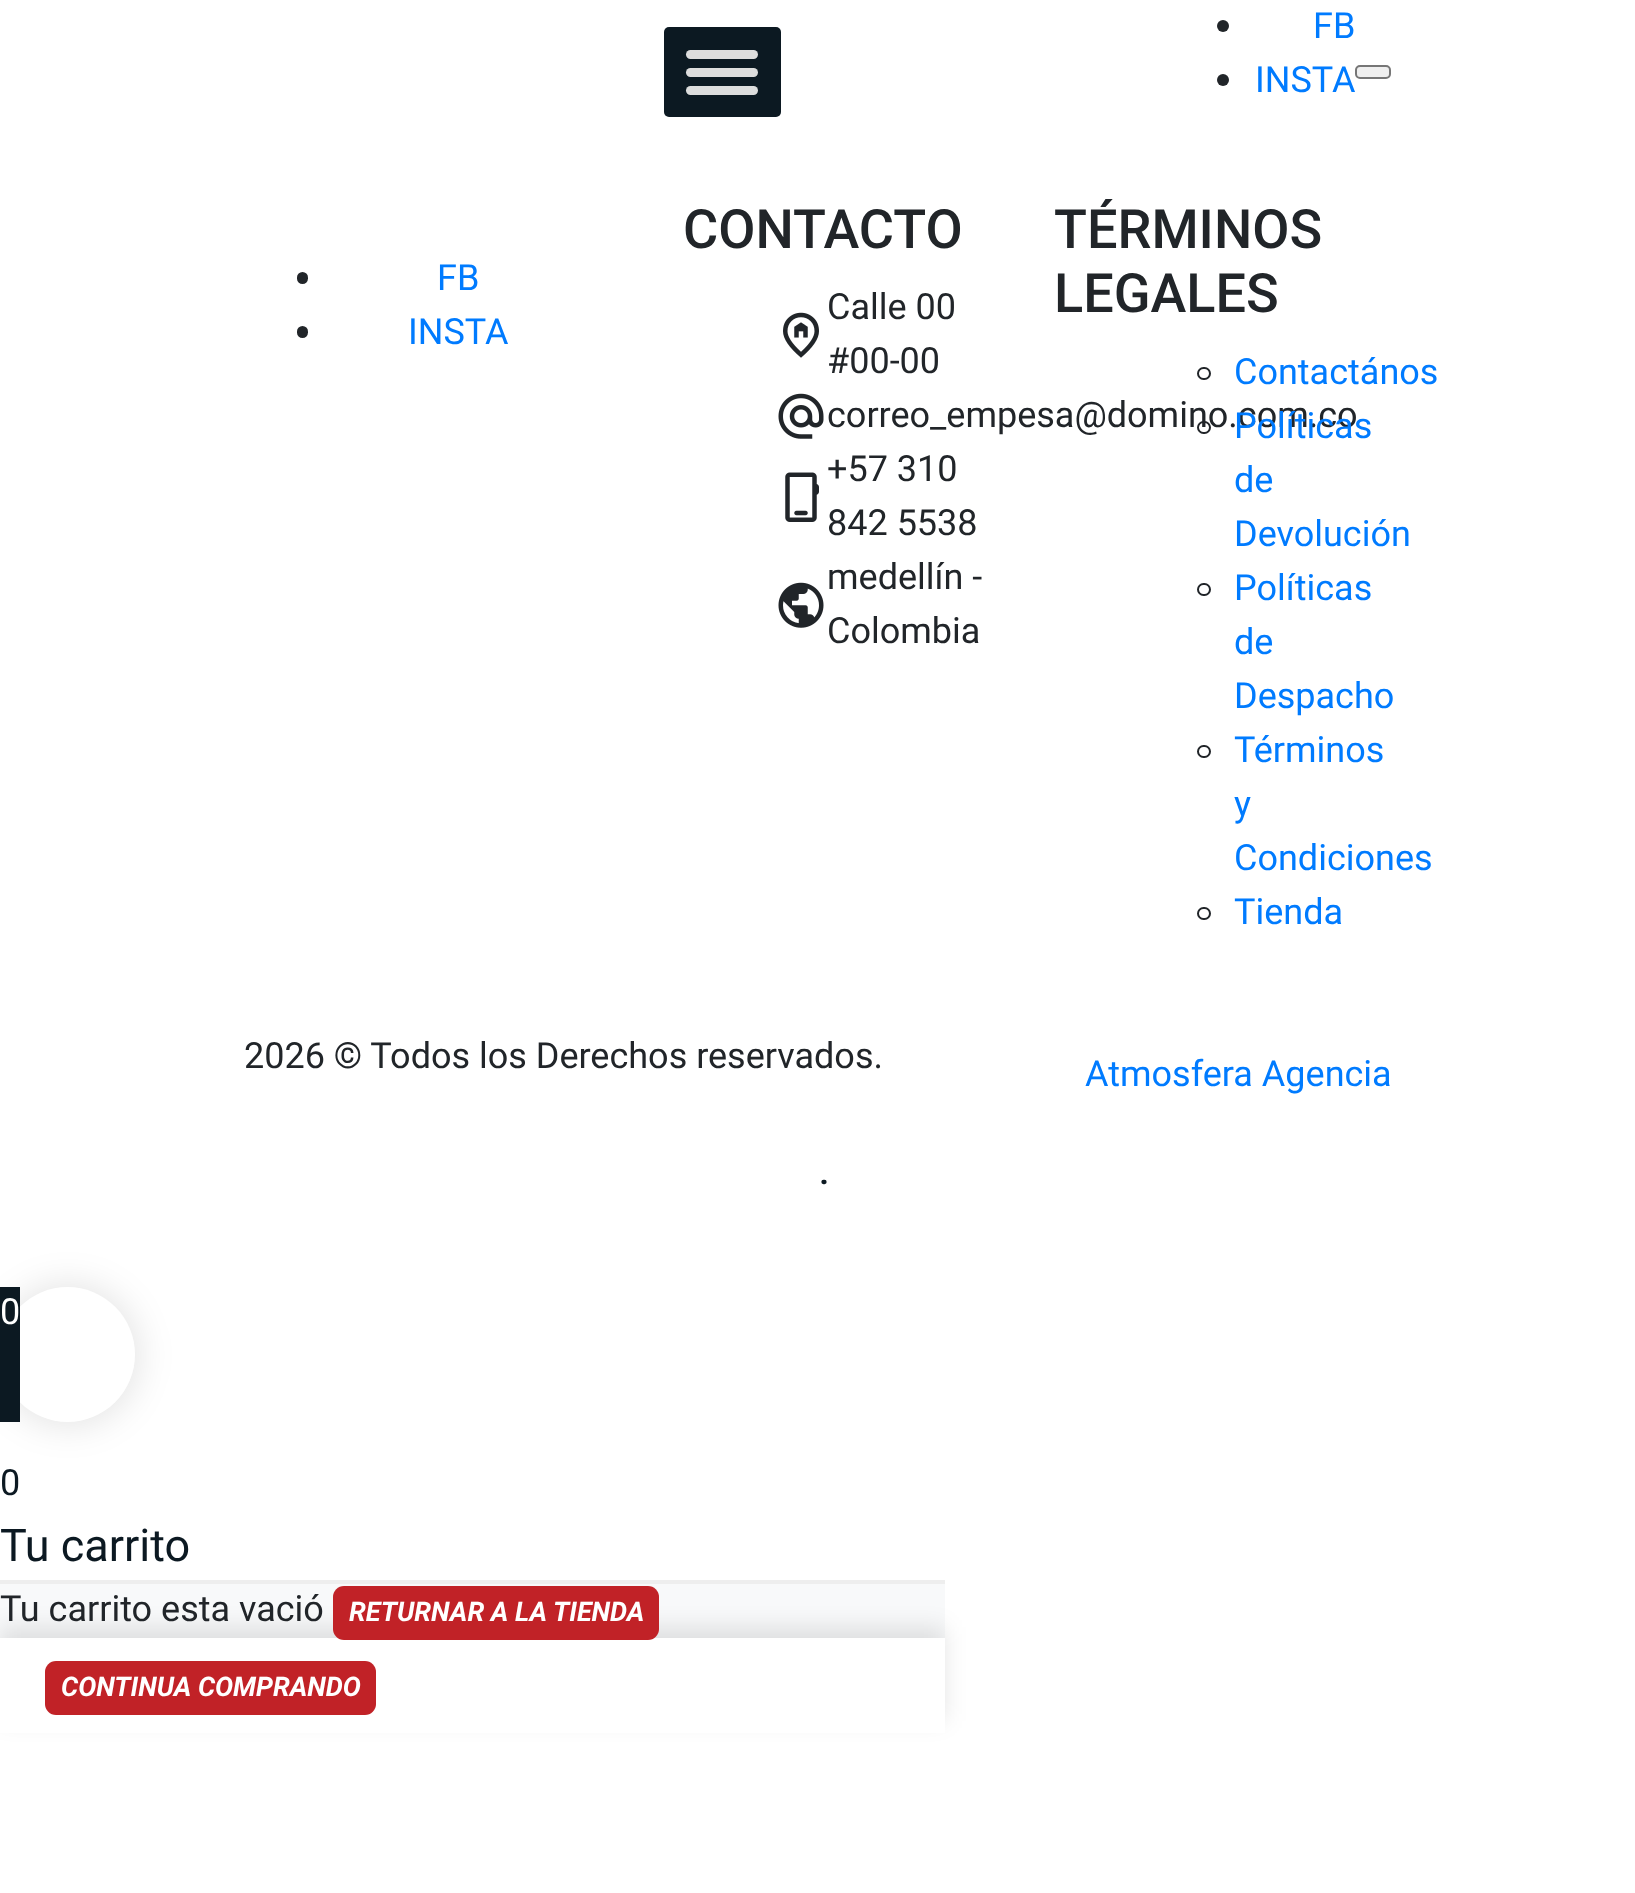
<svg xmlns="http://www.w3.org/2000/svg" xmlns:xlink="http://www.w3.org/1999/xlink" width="1635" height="1893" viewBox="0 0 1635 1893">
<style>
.cls-1{font:36px Roboto;fill:#007bff}
.cls-2{font:500 54px Roboto;fill:#212529}
.cls-3{font:36px Roboto;fill:#212529}
.cls-4{font:36px Roboto;fill:#ffffff}
.cls-5{font:36px Roboto;fill:#0c1922}
.cls-6{font:45px Roboto;fill:#0c1922}
.cls-7{font:italic bold 27px Roboto;fill:#ffffff}
</style>
<rect width="100%" height="100%" fill="#ffffff"/>
<rect fill="#0c1922" x="664" y="27" width="117" height="90" rx="5"/>
<rect fill="#dddddd" x="686" y="50" width="72" height="9" rx="4.5"/>
<rect fill="#dddddd" x="686" y="68" width="72" height="9" rx="4.5"/>
<rect fill="#dddddd" x="686" y="86" width="72" height="9" rx="4.5"/>
<circle fill="#212529" cx="1223" cy="26" r="6"/>
<circle fill="#212529" cx="1223" cy="80" r="6"/>
<rect fill="#212529" x="297" y="272" width="11" height="12" rx="5.5"/>
<rect fill="#212529" x="297" y="326" width="11" height="12" rx="5.5"/>
<rect fill="none" stroke="#212529" stroke-width="2" x="1198" y="368" width="12" height="11" rx="5.5"/>
<rect fill="none" stroke="#212529" stroke-width="2" x="1198" y="422" width="12" height="11" rx="5.5"/>
<rect fill="none" stroke="#212529" stroke-width="2" x="1198" y="584" width="12" height="11" rx="5.5"/>
<rect fill="none" stroke="#212529" stroke-width="2" x="1198" y="746" width="12" height="11" rx="5.5"/>
<rect fill="none" stroke="#212529" stroke-width="2" x="1198" y="908" width="12" height="11" rx="5.5"/>
<image xlink:href="image0.png" x="783" y="312" width="36" height="46"/>
<image xlink:href="image1.png" x="778" y="393" width="46" height="46"/>
<image xlink:href="image2.png" x="785" y="472" width="34" height="50"/>
<image xlink:href="image3.png" x="778" y="582" width="46" height="46"/>
<path fill="none" stroke="#0c1922" stroke-width="4.3" stroke-linecap="round" d="M823.5 1182H824.5"/>
<rect fill="#000000" fill-opacity="0.1" filter="blur(17px)" x="-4" y="1283" width="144" height="144" rx="72"/>
<circle fill="#ffffff" cx="67.5" cy="1354.5" r="67.5"/>
<rect fill="#0c1922" x="0" y="1287" width="20" height="135"/>
<rect fill="#eeeeee" x="0" y="1580" width="945" height="4"/>
<rect fill="#f8f9fa" x="0" y="1584" width="945" height="54"/>
<rect fill="#000000" fill-opacity="0.1" filter="blur(11px)" x="0" y="1627" width="945" height="94"/>
<rect fill="#ffffff" x="0" y="1638" width="945" height="95"/>
<rect fill="#c12227" x="333" y="1586" width="326" height="54" rx="11"/>
<rect fill="#c12227" x="45" y="1661" width="331" height="54" rx="11"/>
<text class="cls-1" x="1313" y="38">FB</text>
<text class="cls-1" x="1255" y="92">INSTA</text>
<rect fill="#efefef" stroke="#767676" stroke-width="2" x="1356" y="66" width="34" height="12" rx="4"/>
<text class="cls-1" x="437" y="290">FB</text>
<text class="cls-1" x="408" y="344">INSTA</text>
<text class="cls-2"><tspan x="1054" y="248">TÉRMINOS</tspan><tspan x="1054" y="312">LEGALES</tspan></text>
<text class="cls-1" x="1234" y="384">Contactános</text>
<text class="cls-1"><tspan x="1234" y="492">de</tspan><tspan x="1234" y="546">Devolución</tspan><tspan x="1234" y="600">Políticas</tspan><tspan x="1234" y="654">de</tspan><tspan x="1234" y="708">Despacho</tspan><tspan x="1234" y="762">Términos</tspan><tspan x="1234" y="816">y</tspan><tspan x="1234" y="870">Condiciones</tspan><tspan x="1234" y="924">Tienda</tspan></text>
<text class="cls-2" x="683" y="248">CONTACTO</text>
<text class="cls-3"><tspan x="827" y="319">Calle 00</tspan><tspan x="827" y="373">#00-00</tspan><tspan x="827" y="427">correo_empesa@domino.com.co</tspan></text>
<text class="cls-1" x="1234" y="438">Políticas</text>
<text class="cls-3"><tspan x="827" y="481">+57 310</tspan><tspan x="827" y="535">842 5538</tspan><tspan x="827" y="589">medellín -</tspan><tspan x="827" y="643">Colombia</tspan></text>
<text class="cls-3" x="244" y="1068">2026 © Todos los Derechos reservados.</text>
<text class="cls-1" x="1085" y="1086">Atmosfera Agencia</text>
<text class="cls-4" x="0" y="1324">0</text>
<text class="cls-5" x="0" y="1495">0</text>
<text class="cls-6" x="0" y="1561">Tu carrito</text>
<text class="cls-3" x="0" y="1621">Tu carrito esta vació</text>
<text class="cls-7" x="349" y="1621">RETURNAR A LA TIENDA</text>
<text class="cls-7" x="61" y="1696">CONTINUA COMPRANDO</text>
</svg>
